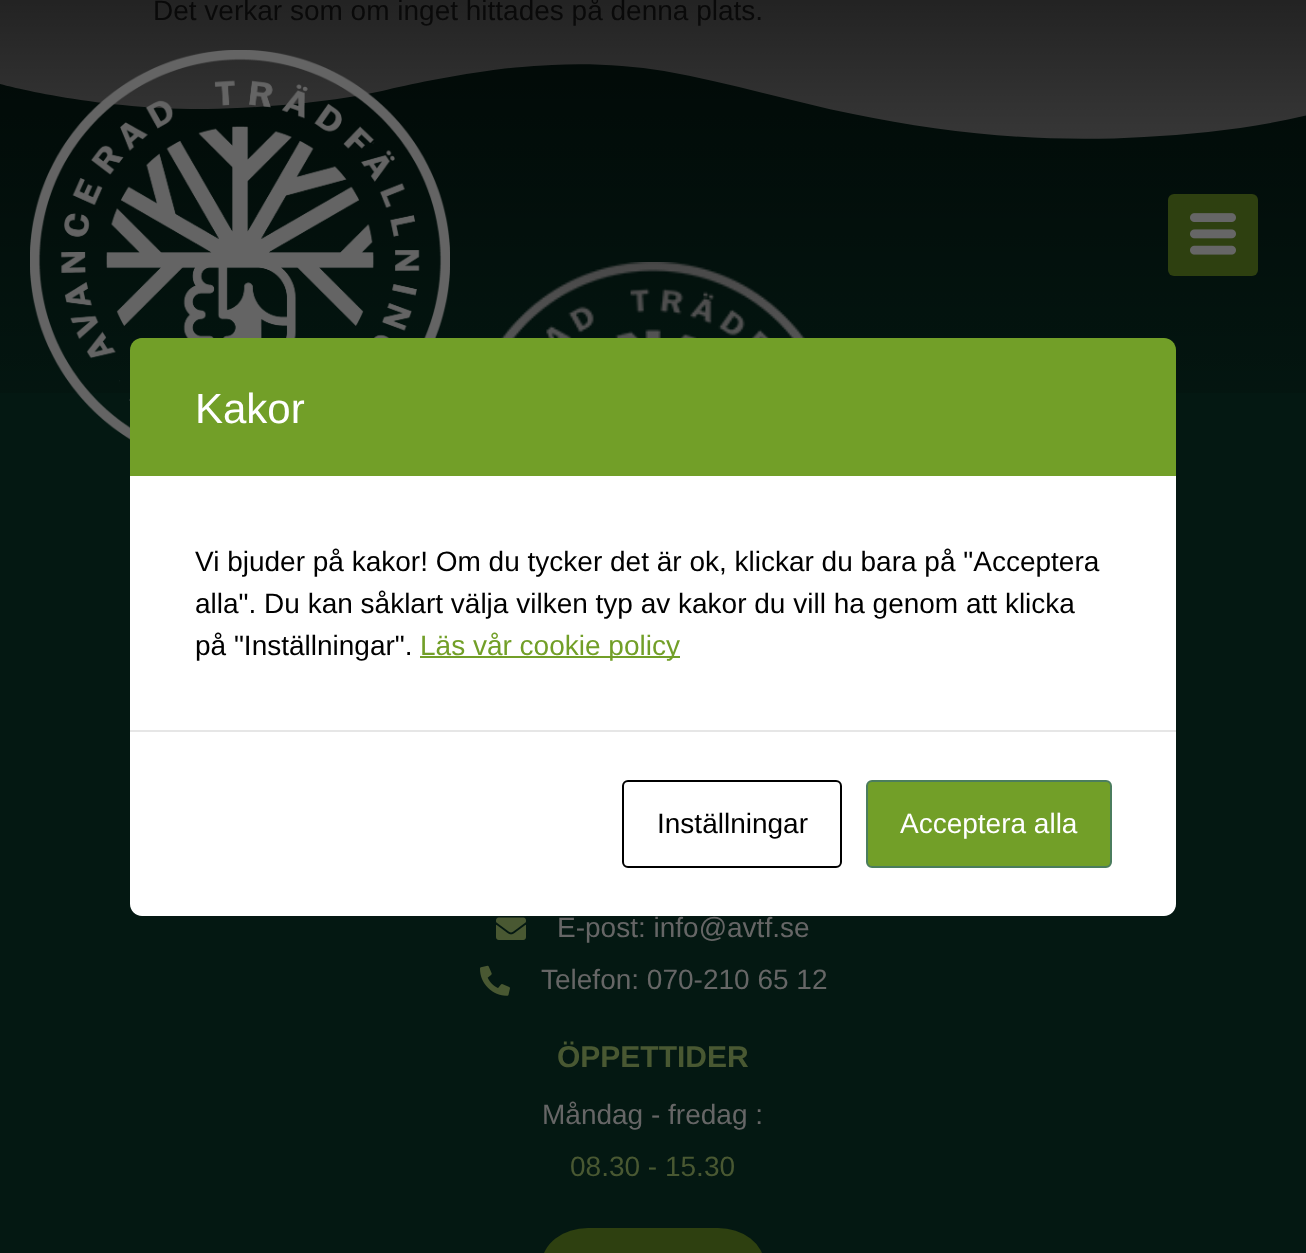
<svg xmlns="http://www.w3.org/2000/svg" xmlns:xlink="http://www.w3.org/1999/xlink" width="1306" height="1253" viewBox="0 0 1306 1253">
<style>
.cls-1{font:28px Liberation Sans;fill:#1a1a1a}
.cls-2{font:42px Liberation Sans;fill:#ffffff}
.cls-3{font:28px Liberation Sans;fill:#000000}
.cls-4{font:28px Liberation Sans;fill:#729f28}
.cls-5{font:28px Liberation Sans;fill:#ffffff}
.cls-6{font:28px Liberation Sans;fill:#666666}
.cls-7{font:bold 30px Liberation Sans;fill:#495832}
.cls-8{font:28px Liberation Sans;fill:#495832}
</style>
<defs>
<linearGradient id="g1" gradientUnits="userSpaceOnUse" x1="653" y1="0" x2="653" y2="470"><stop offset="0" stop-color="#000000" stop-opacity="0.66"/><stop offset="1" stop-color="#000000" stop-opacity="0"/></linearGradient>
</defs>
<rect width="100%" height="100%" fill="#666666"/>
<rect fill="#041812" x="0" y="64" width="1306" height="1189"/>
<rect fill="#ffffff" x="130" y="476" width="1046" height="254"/>
<rect fill="#729f28" x="420" y="656" width="260" height="2"/>
<path fill="#ffffff" d="M130 730H1176V904C1176 910.5 1170.5 916 1164 916H142C135.5 916 130 910.5 130 904Z"/>
<rect fill="#e6e6e6" x="130" y="730" width="1046" height="2"/>
<rect fill="none" stroke="#000000" stroke-width="2" x="623" y="781" width="218" height="86" rx="5"/>
<rect fill="#729f28" stroke="#4b7d5e" stroke-width="2" x="867" y="781" width="244" height="86" rx="5"/>
<path fill="#666666" d="M552 65C587 63 628 65 664 71C727 82 789 101 853 114C948 134 1047 143 1144 137C1199 134 1255 128 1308 115V60H0V84C0 84 94 110 207 109C258 108 328 103 382 91C410 84 451 76 487 71C522 66 538 66 552 65Z"/>
<image xlink:href="image2.png" x="501" y="262" width="304" height="76"/>
<image xlink:href="image3.png" x="496" y="917" width="30" height="23"/>
<image xlink:href="image4.png" x="480" y="965" width="30" height="31"/>
<rect fill="#2e4010" x="542" y="1228" width="222" height="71" rx="46"/>
<text class="cls-1" x="153" y="20">Det verkar som om inget hittades på denna plats.</text>
<rect fill="url(#g1)" x="0" y="0" width="1306" height="393"/>
<rect fill="#2e4010" x="1168" y="194" width="90" height="82" rx="6"/>
<image xlink:href="image1.png" x="1190" y="213" width="46" height="42"/>
<image xlink:href="image0.png" x="30" y="50" width="420" height="390"/>
<path fill="#729f28" d="M142 338H1164C1170.5 338 1176 343.5 1176 350V476H130V350C130 343.5 135.5 338 142 338Z"/>
<text class="cls-2" x="195" y="423">Kakor</text>
<text class="cls-3"><tspan x="195" y="571">Vi bjuder på kakor! Om du tycker det är ok, klickar du bara på "Acceptera</tspan><tspan x="195" y="613">alla". Du kan såklart välja vilken typ av kakor du vill ha genom att klicka</tspan><tspan x="195" y="655">på "Inställningar".</tspan></text>
<text class="cls-4" x="420" y="655">Läs vår cookie policy</text>
<text class="cls-3" x="657" y="833">Inställningar</text>
<text class="cls-5" x="900" y="833">Acceptera alla</text>
<text class="cls-6" x="557" y="937">E-post: info@avtf.se</text>
<text class="cls-6" x="541" y="989">Telefon: 070-210 65 12</text>
<text class="cls-7" x="557" y="1067">ÖPPETTIDER</text>
<text class="cls-6" x="542" y="1124">Måndag - fredag :</text>
<text class="cls-8" x="570" y="1176">08.30 - 15.30</text>
</svg>
